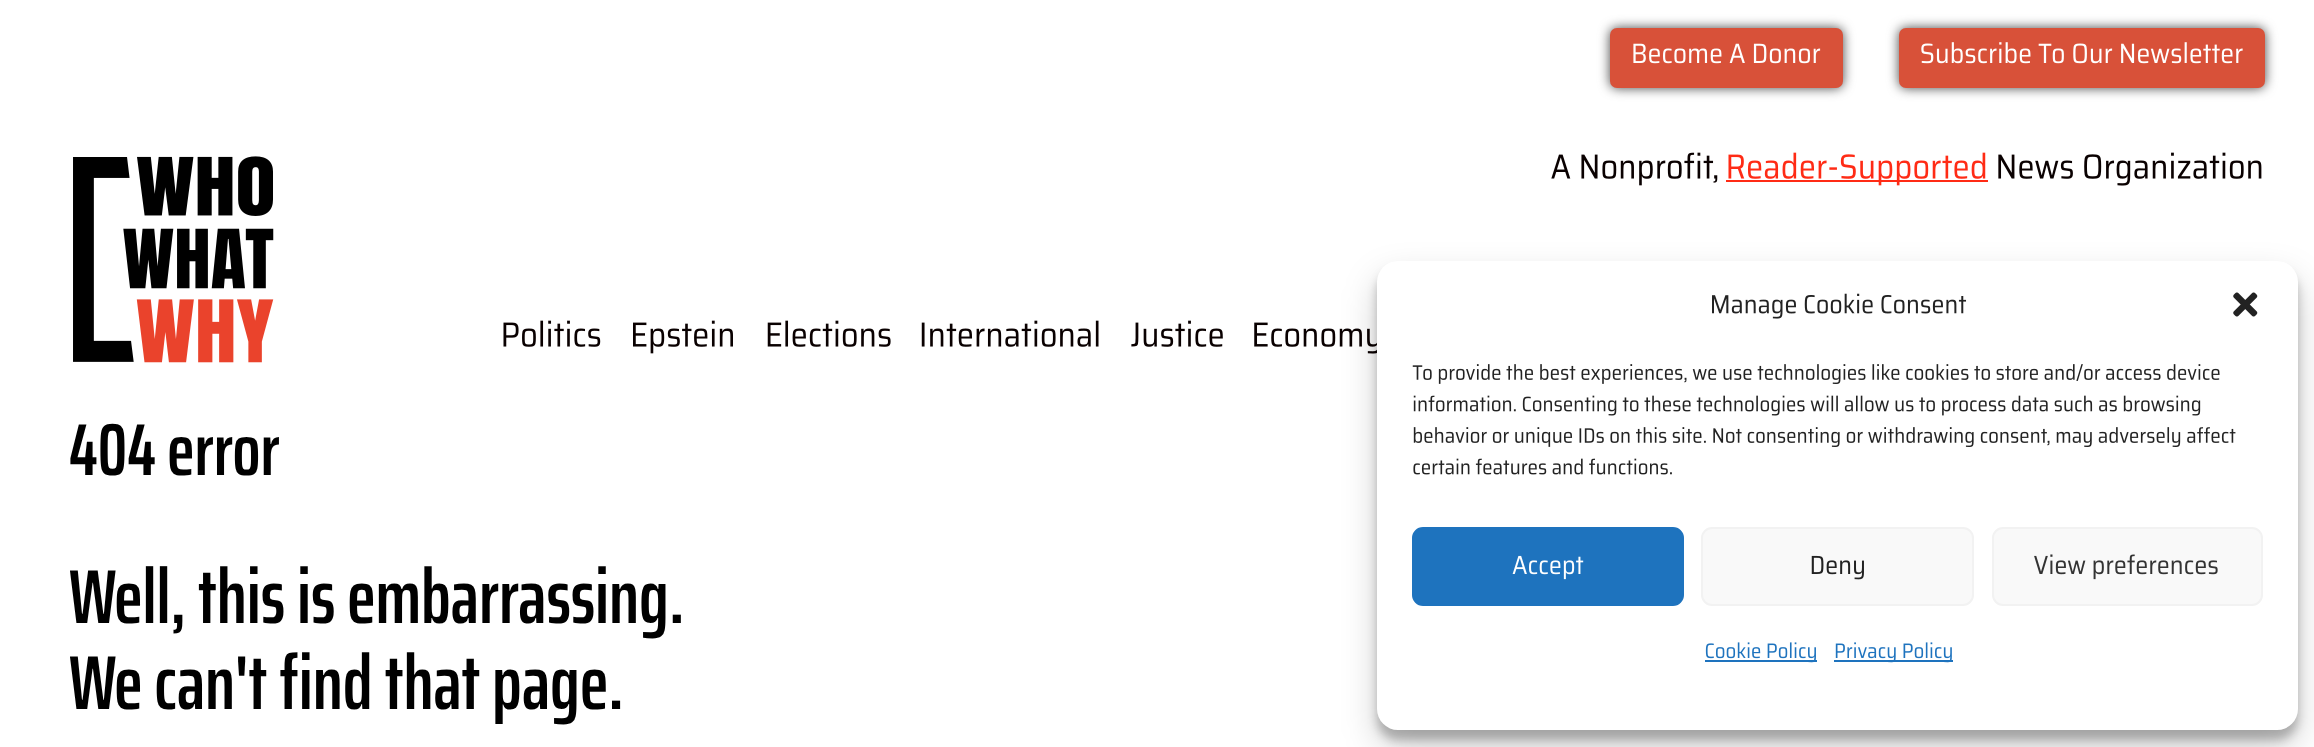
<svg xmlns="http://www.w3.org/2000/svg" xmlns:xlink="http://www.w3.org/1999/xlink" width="2314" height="747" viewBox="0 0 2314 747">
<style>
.cls-1{font:600 73.5px Saira ExtraCondensed;fill:#000000}
.cls-2{font:600 76.5px Saira ExtraCondensed;fill:#000000}
</style>
<rect width="100%" height="100%" fill="#ffffff"/>
<rect fill="#444444" filter="blur(6px)" x="1610" y="28" width="233" height="60" rx="7"/>
<rect fill="#d85139" x="1610" y="28" width="233" height="60" rx="7"/>
<image xlink:href="image0.png" x="1633" y="43" width="188" height="21"/>
<rect fill="#444444" filter="blur(6px)" x="1899" y="28" width="366" height="60" rx="7"/>
<rect fill="#d85139" x="1899" y="28" width="366" height="60" rx="7"/>
<image xlink:href="image1.png" x="1921" y="42" width="322" height="22"/>
<image xlink:href="image2.png" x="73" y="156" width="201" height="207"/>
<image xlink:href="image3.png" x="503" y="320" width="98" height="27"/>
<image xlink:href="image4.png" x="633" y="320" width="100" height="34"/>
<image xlink:href="image5.png" x="767" y="320" width="124" height="27"/>
<image xlink:href="image6.png" x="921" y="320" width="178" height="27"/>
<image xlink:href="image7.png" x="1131" y="320" width="92" height="27"/>
<image xlink:href="image8.png" x="1254" y="322" width="123" height="32"/>
<image xlink:href="image9.png" x="1551" y="152" width="167" height="34"/>
<rect fill="#ff2b15" x="1726" y="180" width="262" height="2"/>
<image xlink:href="image10.png" x="1728" y="152" width="258" height="34"/>
<image xlink:href="image11.png" x="1998" y="152" width="264" height="34"/>
<rect fill="#000000" fill-opacity="0.23" filter="blur(5px)" x="1377" y="271" width="921" height="469" rx="21"/>
<rect fill="#000000" fill-opacity="0.19" filter="blur(17.5px)" x="1377" y="278" width="921" height="469" rx="21"/>
<rect fill="#ffffff" x="1377" y="261" width="921" height="469" rx="21"/>
<image xlink:href="image12.png" x="1712" y="293" width="255" height="26"/>
<image xlink:href="image13.png" x="2233" y="292" width="25" height="25"/>
<image xlink:href="image14.png" x="1412" y="364" width="808" height="20"/>
<image xlink:href="image15.png" x="1413" y="395" width="788" height="21"/>
<image xlink:href="image16.png" x="1413" y="427" width="823" height="20"/>
<image xlink:href="image17.png" x="1413" y="458" width="259" height="17"/>
<rect fill="#1e73be" stroke="#1e73be" stroke-width="2" x="1413" y="528" width="270" height="77" rx="10"/>
<image xlink:href="image18.png" x="1512" y="555" width="72" height="25"/>
<rect fill="#f9f9f9" stroke="#f2f2f2" stroke-width="2" x="1702" y="528" width="271" height="77" rx="10"/>
<image xlink:href="image19.png" x="1811" y="555" width="53" height="25"/>
<rect fill="#f9f9f9" stroke="#f2f2f2" stroke-width="2" x="1993" y="528" width="269" height="77" rx="10"/>
<image xlink:href="image20.png" x="2034" y="554" width="184" height="26"/>
<rect fill="#1e73be" x="1705" y="660" width="112" height="2"/>
<image xlink:href="image21.png" x="1705" y="642" width="111" height="21"/>
<rect fill="#1e73be" x="1834" y="660" width="119" height="2"/>
<image xlink:href="image22.png" x="1835" y="642" width="117" height="21"/>
<text class="cls-1" x="69" y="475">404 error</text>
<text class="cls-2"><tspan x="69" y="623">Well, this is embarrassing.</tspan><tspan x="69" y="709">We can't find that page.</tspan></text>
</svg>
